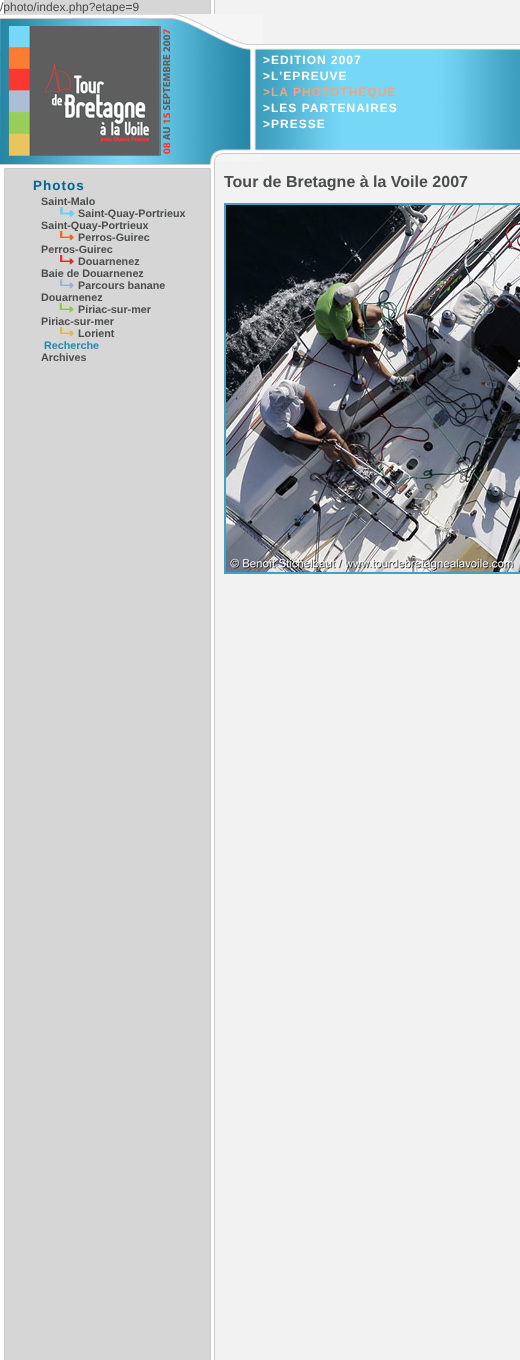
<svg xmlns="http://www.w3.org/2000/svg" xmlns:xlink="http://www.w3.org/1999/xlink" width="520" height="1360" viewBox="0 0 520 1360">
<style>
.cls-1{font:12px Liberation Sans;fill:#4b4c4d}
.cls-2{font:bold 12px Liberation Sans;letter-spacing:1px;fill:#ffffff}
.cls-3{font:bold 12px Liberation Sans;letter-spacing:1px;fill:#f3a37e}
.cls-4{font:bold 13.5px Liberation Sans;letter-spacing:1px;fill:#006991}
.cls-5{font:bold 10.75px Liberation Sans;fill:#4b4c4d}
.cls-6{font:bold 10.75px Liberation Sans;fill:#2888ab}
.cls-7{font:bold 16px Liberation Sans;fill:#4b4c4d}
</style>
<rect width="100%" height="100%" fill="#f2f2f2"/>
<image xlink:href="image0.png" x="0" y="0" width="215" height="1360"/>
<image xlink:href="image1.png" x="0" y="14" width="263" height="147"/>
<image xlink:href="image2.png" x="263" y="44" width="167" height="110"/>
<image xlink:href="image3.png" x="430" y="44" width="1" height="110"/>
<image xlink:href="image4.png" x="431" y="44" width="89" height="110"/>
<image xlink:href="image5.png" x="0" y="161" width="215" height="8"/>
<image xlink:href="image6.png" x="60" y="207" width="15" height="10"/>
<image xlink:href="image8.png" x="60" y="255" width="14" height="10"/>
<image xlink:href="image9.png" x="60" y="279" width="14" height="10"/>
<image xlink:href="image10.png" x="59" y="303" width="15" height="10"/>
<image xlink:href="image11.png" x="60" y="327" width="14" height="10"/>
<rect fill="none" stroke="#3fa2c5" stroke-width="2" x="225" y="204" width="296" height="369"/>
<image xlink:href="image12.png" x="226" y="205" width="294" height="367"/>
<text class="cls-1" x="0" y="11">/photo/index.php?etape=9</text>
<text class="cls-2"><tspan x="263" y="64">&gt;EDITION 2007</tspan><tspan x="263" y="80">&gt;L'EPREUVE</tspan></text>
<text class="cls-3" x="263" y="96">&gt;LA PHOTOTHEQUE</text>
<text class="cls-2"><tspan x="263" y="112">&gt;LES PARTENAIRES</tspan><tspan x="263" y="128">&gt;PRESSE</tspan></text>
<text class="cls-4" x="33" y="190">Photos</text>
<text class="cls-5" x="41" y="205">Saint-Malo</text>
<text class="cls-5" x="78" y="217">Saint-Quay-Portrieux</text>
<text class="cls-5" x="41" y="229">Saint-Quay-Portrieux</text>
<image xlink:href="image7.png" x="60" y="231" width="17" height="10"/>
<text class="cls-5" x="78" y="241">Perros-Guirec</text>
<text class="cls-5" x="41" y="253">Perros-Guirec</text>
<text class="cls-5" x="78" y="265">Douarnenez</text>
<text class="cls-5" x="41" y="277">Baie de Douarnenez</text>
<text class="cls-5" x="78" y="289">Parcours banane</text>
<text class="cls-5" x="41" y="301">Douarnenez</text>
<text class="cls-5" x="78" y="313">Piriac-sur-mer</text>
<text class="cls-5" x="41" y="325">Piriac-sur-mer</text>
<text class="cls-5" x="78" y="337">Lorient</text>
<text class="cls-6" x="44" y="349">Recherche</text>
<text class="cls-5" x="41" y="361">Archives</text>
<text class="cls-7" x="224" y="187">Tour de Bretagne à la Voile 2007</text>
</svg>
